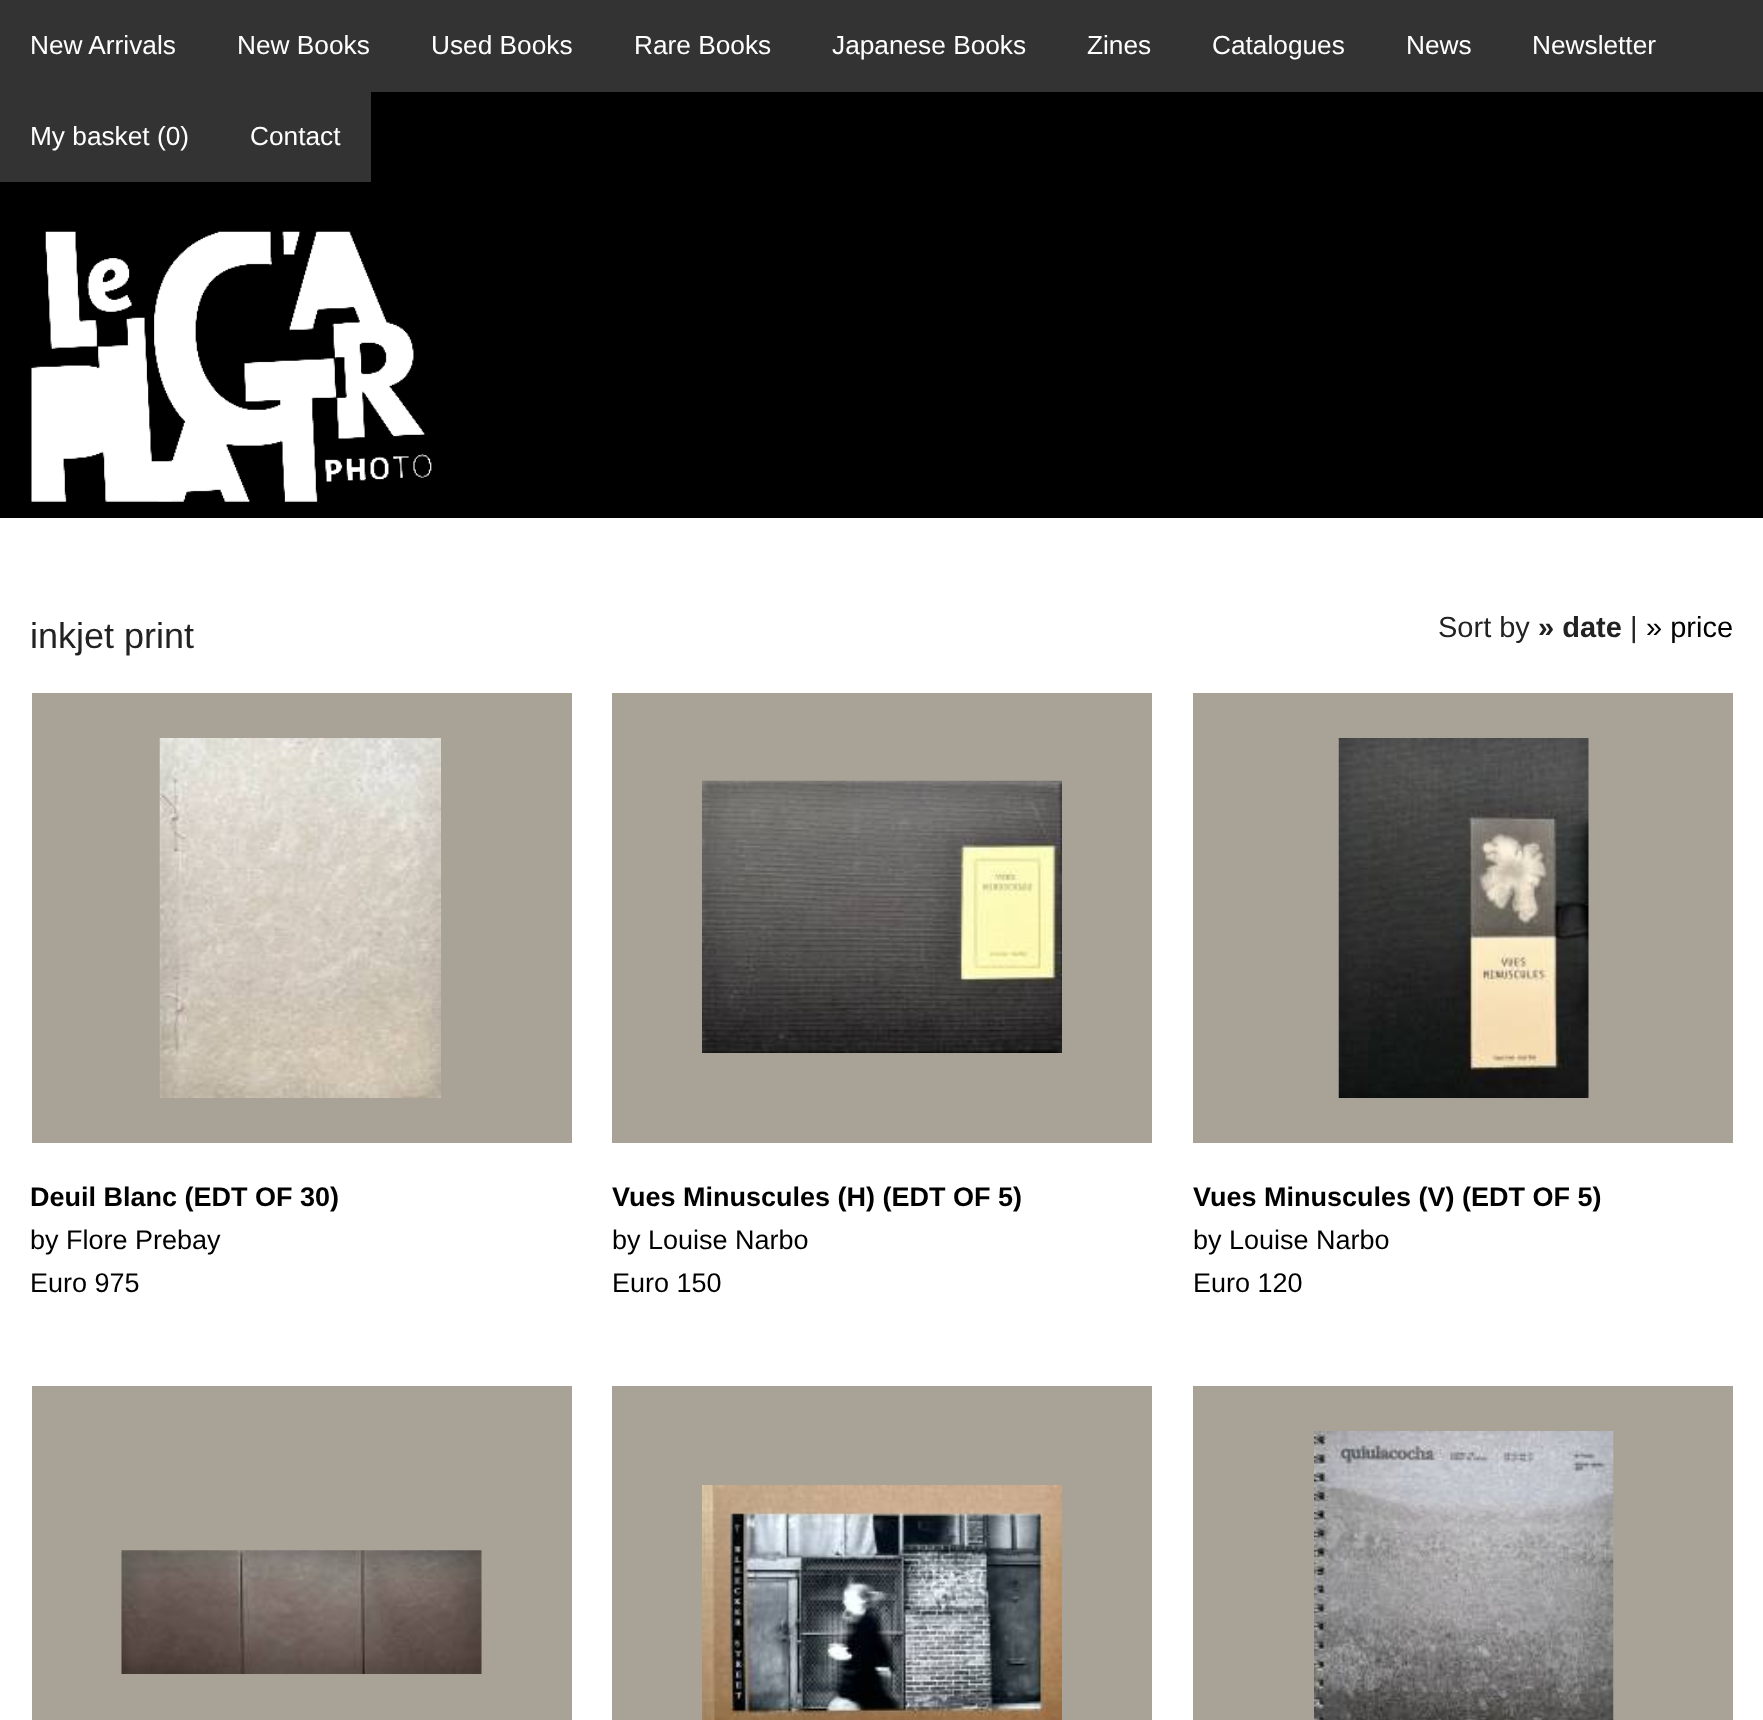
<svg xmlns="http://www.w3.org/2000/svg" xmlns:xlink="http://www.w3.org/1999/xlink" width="1763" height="1720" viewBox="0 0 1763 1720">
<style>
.cls-1{font:26.25px Liberation Sans;fill:#ffffff}
.cls-2{font:36px Liberation Sans;fill:#222222}
.cls-3{font:29px Liberation Sans;fill:#222222}
.cls-4{font:bold 29px Liberation Sans;fill:#222222}
.cls-5{font:29px Liberation Sans;fill:#000000}
.cls-6{font:bold 27px Liberation Sans;fill:#000000}
.cls-7{font:27px Liberation Sans;fill:#000000}
</style>
<rect width="100%" height="100%" fill="#ffffff"/>
<rect fill="#333333" x="0" y="0" width="1763" height="92"/>
<rect fill="#000000" x="0" y="92" width="1763" height="426"/>
<rect fill="#333333" x="0" y="92" width="371" height="90"/>
<image xlink:href="image0.png" x="31" y="231" width="401" height="271"/>
<rect fill="#a9a397" x="32" y="693" width="540" height="450"/>
<image xlink:href="image1.png" x="159" y="738" width="282" height="360"/>
<rect fill="#a9a397" x="612" y="693" width="540" height="450"/>
<image xlink:href="image2.png" x="702" y="780" width="360" height="273"/>
<rect fill="#a9a397" x="1193" y="693" width="540" height="450"/>
<image xlink:href="image3.png" x="1338" y="738" width="251" height="360"/>
<rect fill="#a9a397" x="32" y="1386" width="540" height="334"/>
<image xlink:href="image4.png" x="121" y="1550" width="361" height="124"/>
<rect fill="#a9a397" x="612" y="1386" width="540" height="334"/>
<image xlink:href="image5.png" x="702" y="1485" width="360" height="235"/>
<rect fill="#a9a397" x="1193" y="1386" width="540" height="334"/>
<image xlink:href="image6.png" x="1314" y="1431" width="300" height="289"/>
<text class="cls-1" x="30" y="54">New Arrivals</text>
<text class="cls-1" x="237" y="54">New Books</text>
<text class="cls-1" x="431" y="54">Used Books</text>
<text class="cls-1" x="634" y="54">Rare Books</text>
<text class="cls-1" x="832" y="54">Japanese Books</text>
<text class="cls-1" x="1087" y="54">Zines</text>
<text class="cls-1" x="1212" y="54">Catalogues</text>
<text class="cls-1" x="1406" y="54">News</text>
<text class="cls-1" x="1532" y="54">Newsletter</text>
<text class="cls-1" x="30" y="145">My basket (0)</text>
<text class="cls-1" x="250" y="145">Contact</text>
<text class="cls-2" x="30" y="648">inkjet print</text>
<text class="cls-3" x="1438" y="637">Sort by</text>
<text class="cls-4" x="1538" y="637">» date</text>
<text class="cls-3" x="1630" y="637">|</text>
<text class="cls-5" x="1646" y="637">» price</text>
<text class="cls-6" x="30" y="1206">Deuil Blanc (EDT OF 30)</text>
<text class="cls-7"><tspan x="30" y="1249">by Flore Prebay</tspan><tspan x="30" y="1292">Euro 975</tspan></text>
<text class="cls-6" x="612" y="1206">Vues Minuscules (H) (EDT OF 5)</text>
<text class="cls-7"><tspan x="612" y="1249">by Louise Narbo</tspan><tspan x="612" y="1292">Euro 150</tspan></text>
<text class="cls-6" x="1193" y="1206">Vues Minuscules (V) (EDT OF 5)</text>
<text class="cls-7"><tspan x="1193" y="1249">by Louise Narbo</tspan><tspan x="1193" y="1292">Euro 120</tspan></text>
</svg>
